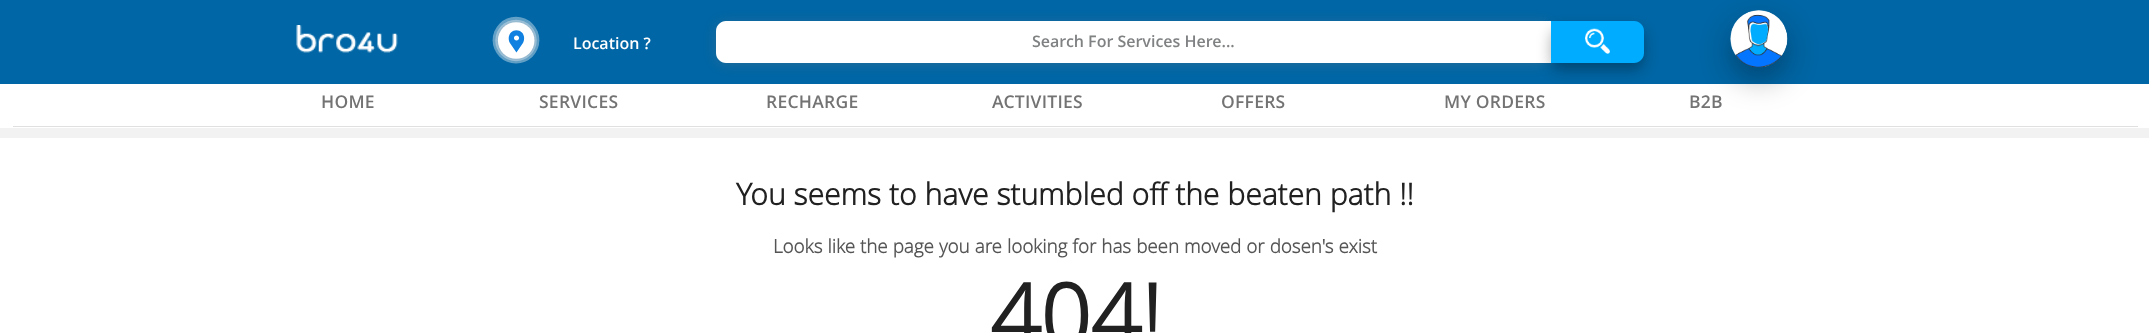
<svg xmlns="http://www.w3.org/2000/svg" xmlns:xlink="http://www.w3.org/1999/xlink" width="2149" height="333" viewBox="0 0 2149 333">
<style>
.cls-1{font:600 16px Open Sans;fill:#ffffff}
.cls-2{font:600 16px Open Sans;fill:#7f8182}
.cls-3{font:600 17.5px Open Sans;letter-spacing:0.25px;fill:#737373}
.cls-4{font:bold 30px Open Sans;fill:#212121}
.cls-5{font:bold 18.75px Open Sans;fill:#555555}
.cls-6{font:bold 88px Open Sans;fill:#212121}
</style>
<rect width="100%" height="100%" fill="#f2f2f2"/>
<rect fill="#0066a5" x="0" y="0" width="2149" height="84"/>
<image xlink:href="image0.png" x="296" y="25" width="102" height="28"/>
<image xlink:href="image1.png" x="492" y="16" width="48" height="48"/>
<rect fill="#7b7b7b" fill-opacity="0.3" filter="blur(6px)" x="716" y="23" width="835" height="41" rx="10"/>
<path fill="#ffffff" d="M726 21H1551V63H726C720.5 63 716 58.5 716 53V31C716 25.5 720.5 21 726 21Z"/>
<rect fill="#ffffff" x="0" y="84" width="2149" height="44"/>
<rect fill="#000000" fill-opacity="0.3" filter="blur(7px)" x="1551" y="29" width="93" height="41" rx="10"/>
<path fill="#00acff" d="M1551 21H1634C1639.5 21 1644 25.5 1644 31V53C1644 58.5 1639.5 63 1634 63H1551Z"/>
<image xlink:href="image2.png" x="1585" y="28" width="25" height="26"/>
<rect fill="#000000" fill-opacity="0.3" filter="blur(15px)" x="1730" y="23" width="58" height="57" rx="28.5"/>
<image xlink:href="image3.png" x="1730" y="10" width="58" height="58"/>
<rect fill="#e0e0e0" x="13" y="126" width="2125" height="1"/>
<rect fill="#ffffff" x="0" y="138" width="2149" height="195"/>
<text class="cls-1" x="573" y="49">Location ?</text>
<text class="cls-2" x="1032" y="47">Search For Services Here...</text>
<text class="cls-3" x="321" y="108">HOME</text>
<text class="cls-3" x="539" y="108">SERVICES</text>
<text class="cls-3" x="766" y="108">RECHARGE</text>
<text class="cls-3" x="992" y="108">ACTIVITIES</text>
<text class="cls-3" x="1221" y="108">OFFERS</text>
<text class="cls-3" x="1444" y="108">MY ORDERS</text>
<text class="cls-3" x="1689" y="108">B2B</text>
<text class="cls-4" x="736" y="205" word-spacing="0.2">You seems to have stumbled off the beaten path !!</text>
<text class="cls-5" x="773" y="253" word-spacing="0.2">Looks like the page you are looking for has been moved or dosen's exist</text>
<text class="cls-6" x="990" y="348">404!</text>
</svg>
